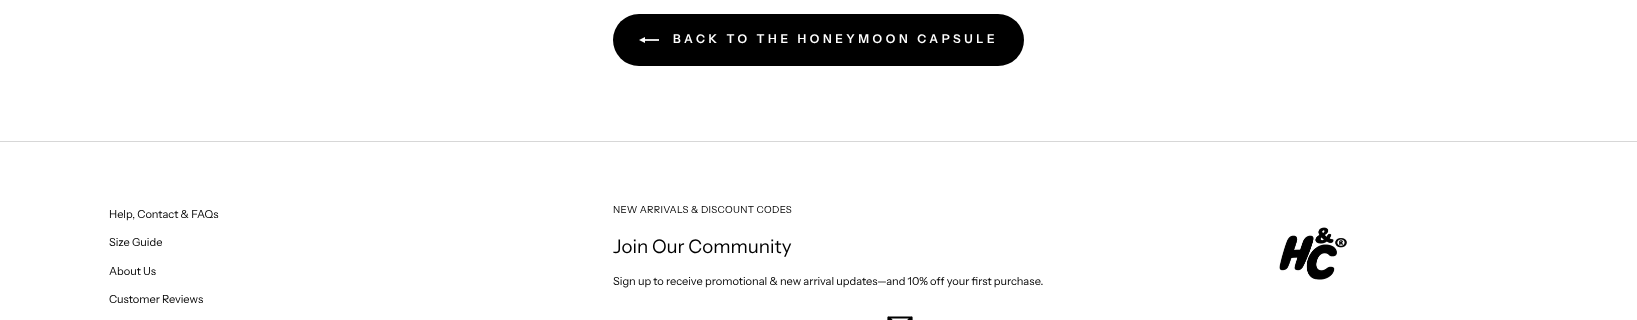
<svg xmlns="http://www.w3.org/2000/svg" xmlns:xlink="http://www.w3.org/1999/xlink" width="1637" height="320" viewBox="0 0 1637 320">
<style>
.cls-1{font:600 12px Instrument Sans;letter-spacing:3.6px;fill:#ffffff}
.cls-2{font:11.05px Instrument Sans;fill:#000000}
.cls-3{font:9.75px Instrument Sans;letter-spacing:0.3px;fill:#000000}
.cls-4{font:18.75px Instrument Sans;fill:#000000}
</style>
<rect width="100%" height="100%" fill="#ffffff"/>
<rect fill="#000000" x="613" y="14" width="411" height="52" rx="26"/>
<image xlink:href="image0.png" x="639" y="37" width="20" height="6"/>
<rect fill="#d7d7d7" x="0" y="141" width="1637" height="1"/>
<path fill="none" stroke="#000000" stroke-width="2.2" stroke-linecap="round" stroke-linejoin="round" d="M911.5 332.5H888.5V317.5H911.5ZM888.5 317.5L898 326.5H901.5L911.5 317.5M896 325L888.5 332M911.5 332.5L903.5 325"/>
<image xlink:href="image1.png" x="1279" y="227" width="68" height="53"/>
<text class="cls-1" x="673" y="43">BACK TO THE HONEYMOON CAPSULE</text>
<text class="cls-2" x="109" y="218">Help, Contact &amp; FAQs</text>
<text class="cls-2" x="109" y="246">Size Guide</text>
<text class="cls-2" x="109" y="275">About Us</text>
<text class="cls-2" x="109" y="303">Customer Reviews</text>
<text class="cls-3" x="613" y="213">NEW ARRIVALS &amp; DISCOUNT CODES</text>
<text class="cls-4" x="613" y="253">Join Our Community</text>
<text class="cls-2" x="613" y="285">Sign up to receive promotional &amp; new arrival updates—and 10% off your first purchase.</text>
</svg>
